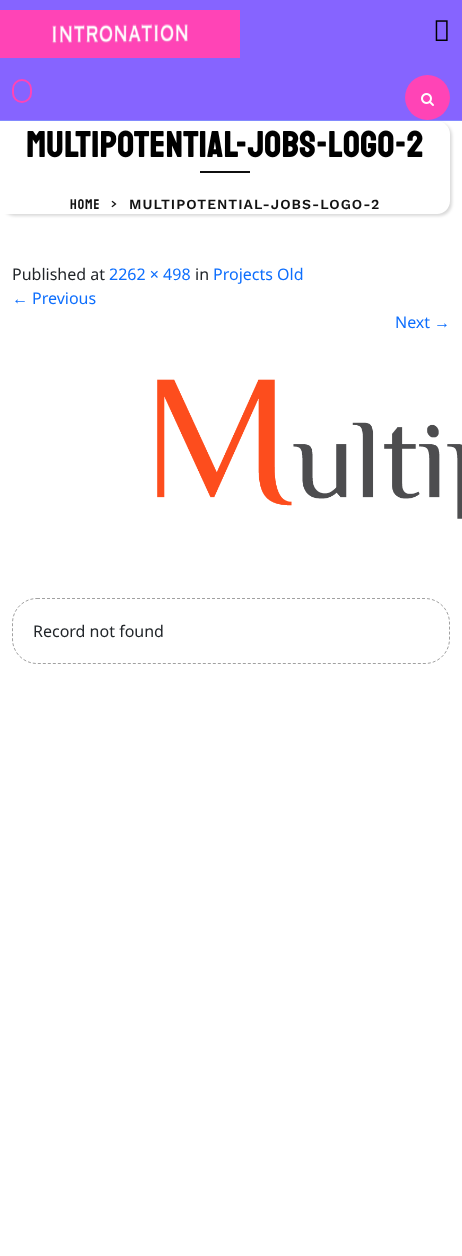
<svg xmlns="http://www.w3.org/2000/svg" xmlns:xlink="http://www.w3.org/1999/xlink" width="462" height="1256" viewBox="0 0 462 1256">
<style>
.cls-1{font:bold 36px Staatliches;letter-spacing:1px;fill:#000000}
.cls-2{font:14px Staatliches;letter-spacing:1px;fill:#121212}
.cls-3{font:600 14px Work Sans;letter-spacing:1px;fill:#121212}
.cls-4{font:16px Noto Sans;fill:#212529}
.cls-5{font:16px Noto Sans;fill:#0d6efd}
.cls-6{font:16px Liberation Sans;fill:#0d6efd}
</style>
<rect width="100%" height="100%" fill="#ffffff"/>
<rect fill="#8664ff" x="0" y="0" width="462" height="120"/>
<rect fill="#848bff" x="0" y="120" width="462" height="1"/>
<rect fill="#ff44b6" x="0" y="10" width="240" height="48"/>
<image xlink:href="image0.png" x="52" y="23" width="136" height="21"/>
<image xlink:href="image1.png" x="435" y="20" width="13" height="21"/>
<rect fill="none" stroke="#ff44b6" stroke-width="2" x="13" y="80" width="18" height="22" rx="9"/>
<circle fill="#ff44b6" cx="427.5" cy="97.5" r="22.5"/>
<image xlink:href="image2.png" x="421" y="93" width="13" height="13"/>
<rect fill="#000000" fill-opacity="0.15" filter="blur(1.5px)" x="2" y="123" width="450" height="93" rx="13"/>
<path fill="#ffffff" d="M0 121H437C444 121 450 127 450 134V201C450 208 444 214 437 214H0Z"/>
<rect fill="#0f0f0f" x="200" y="171" width="50" height="2"/>
<image xlink:href="image3.png" x="157" y="379" width="305" height="140"/>
<path fill="none" stroke="#a1a1a1" stroke-dasharray="3 2" d="M37 598.5H425C438.5 598.5 449.5 609.5 449.5 623V639C449.5 652.5 438.5 663.5 425 663.5H37C23.5 663.5 12.5 652.5 12.5 639V623C12.5 609.5 23.5 598.5 37 598.5Z"/>
<text class="cls-1" x="26" y="157">multipotential-jobs-logo-2</text>
<text class="cls-2" x="70" y="209">HOME</text>
<text class="cls-2" x="111" y="209">&gt;</text>
<text class="cls-3" x="129" y="209">MULTIPOTENTIAL-JOBS-LOGO-2</text>
<text class="cls-4" x="12" y="280">Published at</text>
<text class="cls-5" x="109" y="280">2262 × 498</text>
<text class="cls-4" x="195" y="280">in</text>
<text class="cls-5" x="213" y="280">Projects Old</text>
<text class="cls-6" x="12" y="304">←</text>
<text class="cls-5" x="32" y="304">Previous</text>
<text class="cls-5" x="395" y="328">Next</text>
<text class="cls-6" x="434" y="328">→</text>
<text class="cls-4" x="33" y="637">Record not found</text>
</svg>
